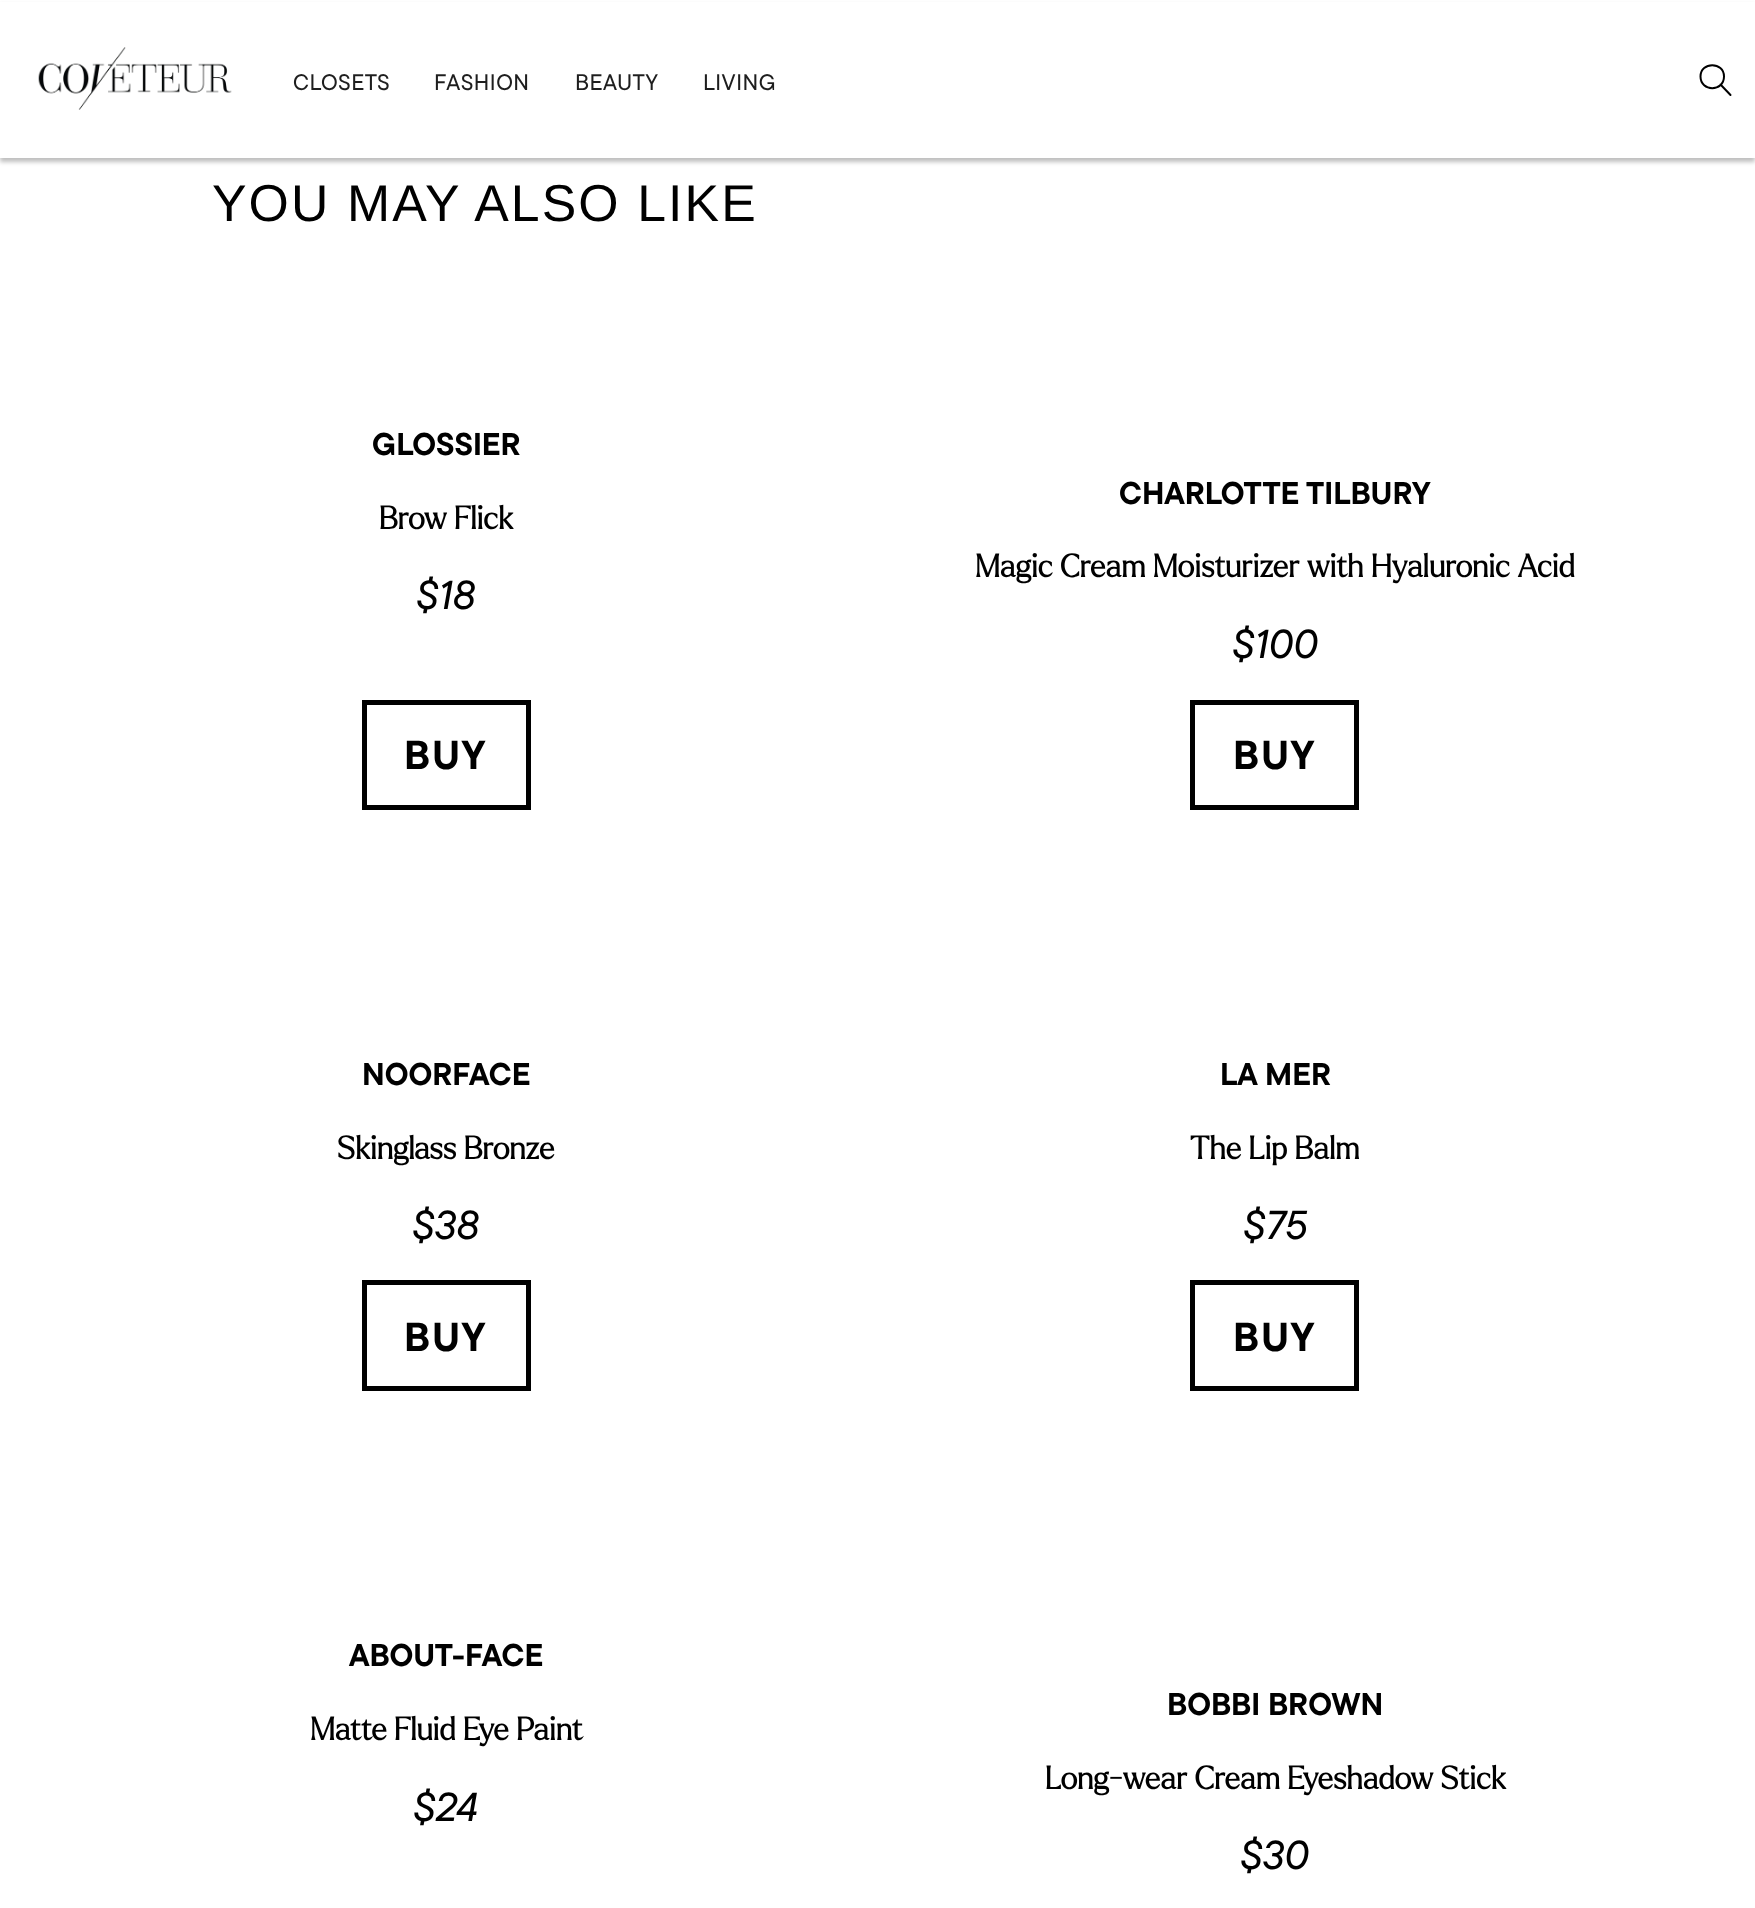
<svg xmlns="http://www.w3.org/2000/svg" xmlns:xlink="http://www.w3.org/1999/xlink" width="1755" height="1908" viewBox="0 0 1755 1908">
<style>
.cls-1{font:500 22.5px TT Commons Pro;letter-spacing:0.5px;fill:#1e1e1e}
.cls-2{font:51.75px Liberation Sans;letter-spacing:2.1px;fill:#000000}
.cls-3{font:bold 31.5px TT Commons Pro;fill:#000000}
.cls-4{font:bold 31.5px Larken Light;fill:#000000}
.cls-5{font:italic 500 40.5px TT Commons Pro;fill:#000000}
.cls-6{font:bold 40.5px TT Commons Pro;letter-spacing:2px;fill:#000000}
</style>
<rect width="100%" height="100%" fill="#ffffff"/>
<rect fill="#000000" fill-opacity="0.25" filter="blur(2px)" x="0" y="5" width="1755" height="157"/>
<rect fill="#ffffff" x="0" y="2" width="1755" height="156"/>
<image xlink:href="image0.png" x="38" y="47" width="194" height="63"/>
<path fill="none" stroke="#000000" stroke-width="2" stroke-linecap="round" stroke-linejoin="round" d="M1720.5 84.5L1730.5 95M1724 76.5C1724 92 1700.5 92 1700.5 76.5C1700.5 61.5 1724 61.5 1724 76.5Z"/>
<rect fill="none" stroke="#000000" stroke-width="5" x="364.5" y="702.5" width="164" height="105"/>
<rect fill="none" stroke="#000000" stroke-width="5" x="1192.5" y="702.5" width="164" height="105"/>
<rect fill="none" stroke="#000000" stroke-width="5" x="364.5" y="1282.5" width="164" height="106"/>
<rect fill="none" stroke="#000000" stroke-width="5" x="1192.5" y="1282.5" width="164" height="106"/>
<text class="cls-1" x="293" y="90">CLOSETS</text>
<text class="cls-1" x="434" y="90">FASHION</text>
<text class="cls-1" x="575" y="90">BEAUTY</text>
<text class="cls-1" x="703" y="90">LIVING</text>
<text class="cls-2" x="212" y="221">YOU MAY ALSO LIKE</text>
<text class="cls-3" x="372" y="455">GLOSSIER</text>
<text class="cls-4" x="379" y="529">Brow Flick</text>
<text class="cls-5" x="416" y="609">$18</text>
<text class="cls-6" x="404" y="769">BUY</text>
<text class="cls-3" x="1119" y="504">CHARLOTTE TILBURY</text>
<text class="cls-4" x="975" y="577">Magic Cream Moisturizer with Hyaluronic Acid</text>
<text class="cls-5" x="1232" y="658">$100</text>
<text class="cls-6" x="1233" y="769">BUY</text>
<text class="cls-3" x="362" y="1085">NOORFACE</text>
<text class="cls-4" x="337" y="1159">Skinglass Bronze</text>
<text class="cls-5" x="412" y="1239">$38</text>
<text class="cls-6" x="404" y="1351">BUY</text>
<text class="cls-3" x="1220" y="1085">LA MER</text>
<text class="cls-4" x="1190" y="1159">The Lip Balm</text>
<text class="cls-5" x="1243" y="1239">$75</text>
<text class="cls-6" x="1233" y="1351">BUY</text>
<text class="cls-3" x="349" y="1666">ABOUT-FACE</text>
<text class="cls-4" x="310" y="1740">Matte Fluid Eye Paint</text>
<text class="cls-5" x="413" y="1821">$24</text>
<text class="cls-3" x="1167" y="1715">BOBBI BROWN</text>
<text class="cls-4" x="1045" y="1789">Long-wear Cream Eyeshadow Stick</text>
<text class="cls-5" x="1240" y="1869">$30</text>
</svg>
